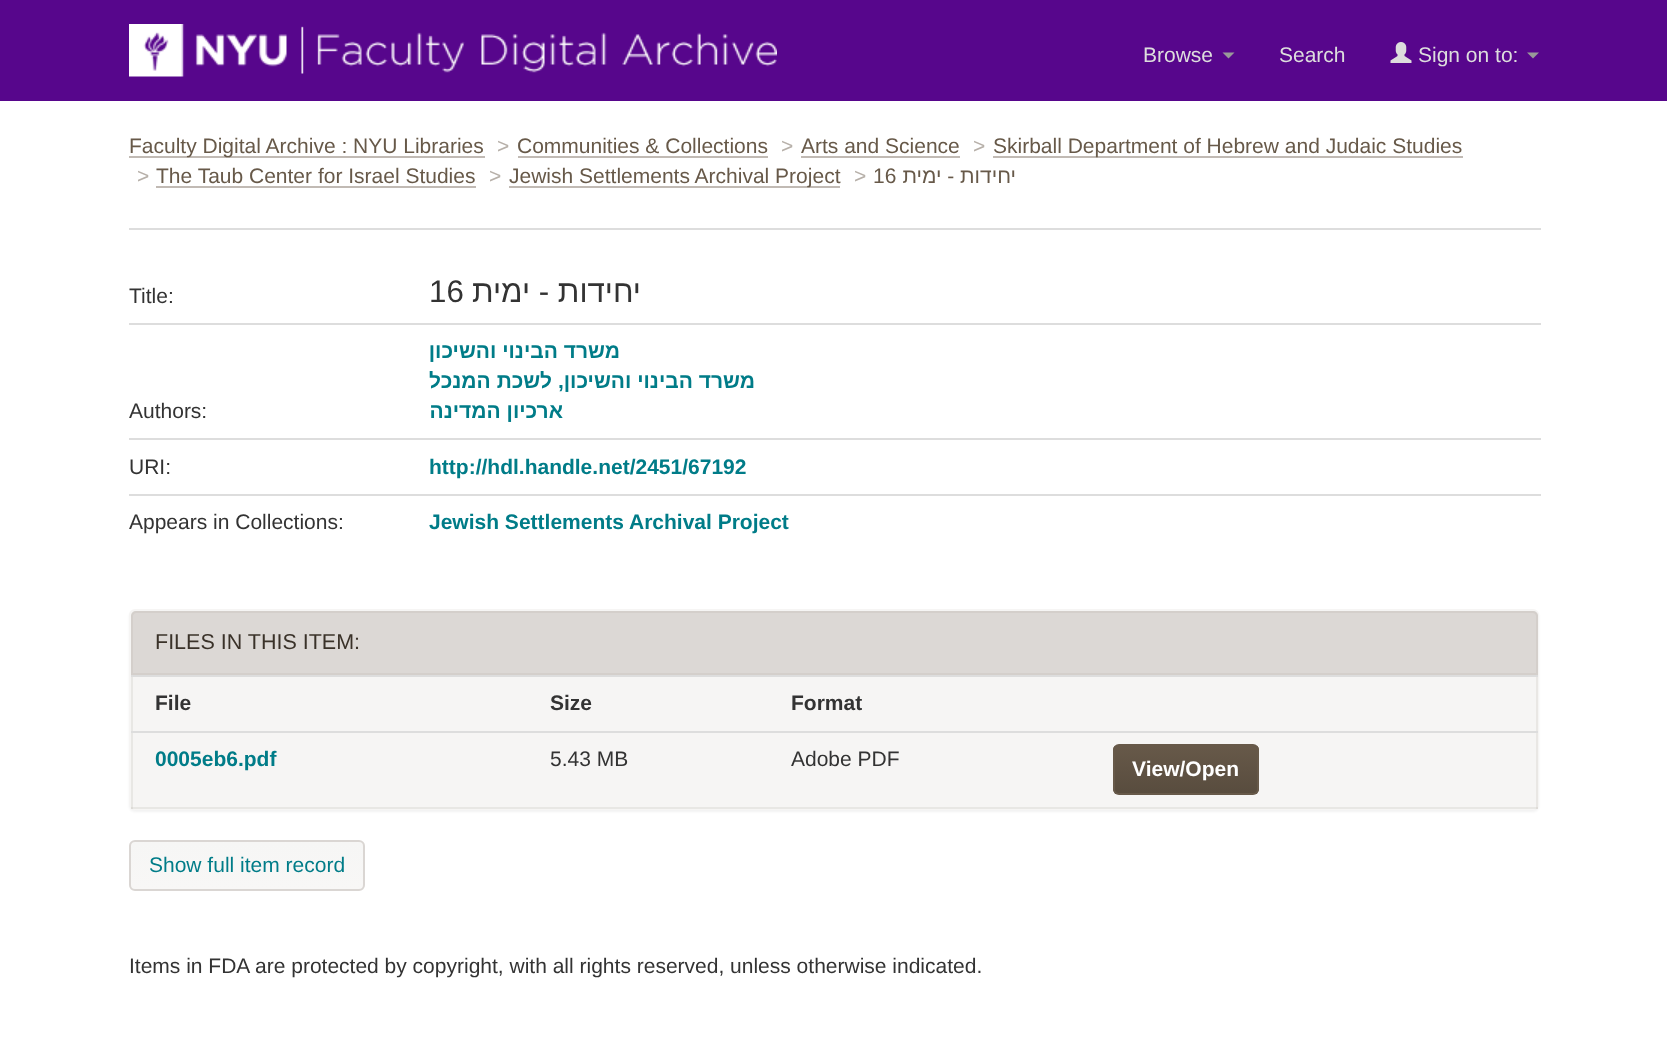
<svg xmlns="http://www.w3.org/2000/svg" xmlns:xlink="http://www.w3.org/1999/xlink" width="1667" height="1040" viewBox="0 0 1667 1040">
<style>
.cls-1{font:21px Liberation Sans;fill:#dddddd}
.cls-2{font:21px Liberation Sans;fill:#675949}
.cls-3{font:21px Liberation Sans;fill:#b7b0a9}
.cls-4{font:21px Liberation Sans;direction:rtl;fill:#675949}
.cls-5{font:21px Liberation Sans;fill:#333333}
.cls-6{font:31.25px Liberation Sans;fill:#333333}
.cls-7{font:31.25px Liberation Sans;direction:rtl;fill:#333333}
.cls-8{font:bold 21px Liberation Sans;direction:rtl;fill:#007c88}
.cls-9{font:bold 21px Liberation Sans;fill:#007c88}
.cls-10{font:21.5px Liberation Sans;fill:#3a3229}
.cls-11{font:bold 21px Liberation Sans;fill:#333333}
.cls-12{font:bold 21px Liberation Sans;fill:#ffffff}
.cls-13{font:21px Liberation Sans;fill:#007c88}
</style>
<defs>
<clipPath id="clip1"><rect x="1113" y="744" width="146" height="51" rx="6"/></clipPath>
<linearGradient id="g1" gradientUnits="userSpaceOnUse" x1="1186" y1="746" x2="1186" y2="794"><stop offset="0" stop-color="#675949"/><stop offset="1" stop-color="#584c3e"/></linearGradient>
<clipPath id="clip2"><rect x="129" y="840" width="236" height="51" rx="6"/></clipPath>
<linearGradient id="g2" gradientUnits="userSpaceOnUse" x1="247" y1="842" x2="247" y2="890"><stop offset="0" stop-color="#f6f6f5"/><stop offset="1" stop-color="#f8f7f6"/></linearGradient>
</defs>
<rect width="100%" height="100%" fill="#ffffff"/>
<rect fill="#57068c" x="0" y="0" width="1667" height="101"/>
<image xlink:href="image0.png" x="129" y="24" width="648" height="53"/>
<path fill="#999999" d="M1222.5 52.5H1234.5L1228.5 58.5Z"/>
<image xlink:href="image1.png" x="1390" y="42" width="22" height="21"/>
<path fill="#999999" d="M1527 52.5H1539L1533 58.5Z"/>
<rect fill="#c1bab4" x="129" y="156" width="356" height="2"/>
<rect fill="#c1bab4" x="518" y="156" width="250" height="2"/>
<rect fill="#c1bab4" x="801" y="156" width="159" height="2"/>
<rect fill="#c1bab4" x="993" y="156" width="470" height="2"/>
<rect fill="#c1bab4" x="156" y="186" width="320" height="2"/>
<rect fill="#c1bab4" x="509" y="186" width="331" height="2"/>
<rect fill="#dddddd" x="129" y="228" width="1412" height="2"/>
<rect fill="#dddddd" x="129" y="323" width="1412" height="2"/>
<rect fill="#dddddd" x="129" y="438" width="1412" height="2"/>
<rect fill="#dddddd" x="129" y="494" width="1412" height="2"/>
<rect fill="#000000" fill-opacity="0.05" filter="blur(1px)" x="129" y="611" width="1410" height="201" rx="6"/>
<rect fill="#f6f5f4" x="129" y="609" width="1410" height="201" rx="6"/>
<path fill="#dcd8d5" d="M136 611H1533C1536 611 1538 613 1538 616V675H131V616C131 613 133 611 136 611Z"/>
<path fill="none" stroke="#b5ada6" stroke-opacity="0.2" stroke-width="2" d="M136 612H1533C1535 612 1537 614 1537 616V674H132V616C132 614 134 612 136 612Z"/>
<rect fill="#e9e7e4" x="1536" y="675" width="2" height="134"/>
<rect fill="#b5ada6" fill-opacity="0.2" x="131" y="807" width="1407" height="2"/>
<rect fill="#b5ada6" fill-opacity="0.2" x="131" y="675" width="2" height="134"/>
<rect fill="#dddddd" x="131" y="675" width="1407" height="2"/>
<rect fill="#dddddd" x="131" y="731" width="1407" height="2"/>
<g clip-path="url(#clip1)">
<rect fill="url(#g1)" x="1113" y="746" width="146" height="48"/>
</g>
<rect fill="none" stroke="#675949" stroke-width="2" x="1114" y="745" width="144" height="49" rx="5"/>
<g clip-path="url(#clip2)">
<rect fill="url(#g2)" x="129" y="842" width="236" height="48"/>
</g>
<rect fill="none" stroke="#dad6d3" stroke-width="2" x="130" y="841" width="234" height="49" rx="5"/>
<text class="cls-1" x="1143" y="62">Browse</text>
<text class="cls-1" x="1279" y="62">Search</text>
<text class="cls-1" x="1418" y="62">Sign on to:</text>
<text class="cls-2" x="129" y="153">Faculty Digital Archive : NYU Libraries</text>
<text class="cls-3" x="497" y="153">&gt;</text>
<text class="cls-2" x="517" y="153">Communities &amp; Collections</text>
<text class="cls-3" x="781" y="153">&gt;</text>
<text class="cls-2" x="801" y="153">Arts and Science</text>
<text class="cls-3" x="973" y="153">&gt;</text>
<text class="cls-2" x="993" y="153">Skirball Department of Hebrew and Judaic Studies</text>
<text class="cls-3" x="137" y="183">&gt;</text>
<text class="cls-2" x="156" y="183">The Taub Center for Israel Studies</text>
<text class="cls-3" x="489" y="183">&gt;</text>
<text class="cls-2" x="509" y="183">Jewish Settlements Archival Project</text>
<text class="cls-3" x="854" y="183">&gt;</text>
<text class="cls-2" x="873" y="183">16</text>
<text class="cls-4" x="1016" y="183">יחידות - ימית</text>
<text class="cls-5" x="129" y="303">Title:</text>
<text class="cls-6" x="429" y="302">16</text>
<text class="cls-7" x="641" y="302">יחידות - ימית</text>
<text class="cls-5" x="129" y="418">Authors:</text>
<text class="cls-8" x="620" y="358">משרד הבינוי והשיכון</text>
<text class="cls-8" x="755" y="388">משרד הבינוי והשיכון, לשכת המנכל</text>
<text class="cls-8" x="563" y="418">ארכיון המדינה</text>
<text class="cls-5" x="129" y="474">URI:</text>
<text class="cls-9" x="429" y="474">http://hdl.handle.net/2451/67192</text>
<text class="cls-5" x="129" y="529">Appears in Collections:</text>
<text class="cls-9" x="429" y="529">Jewish Settlements Archival Project</text>
<text class="cls-10" x="155" y="649">FILES IN THIS ITEM:</text>
<text class="cls-11" x="155" y="710">File</text>
<text class="cls-11" x="550" y="710">Size</text>
<text class="cls-11" x="791" y="710">Format</text>
<text class="cls-9" x="155" y="766">0005eb6.pdf</text>
<text class="cls-5" x="550" y="766">5.43 MB</text>
<text class="cls-5" x="791" y="766">Adobe PDF</text>
<text class="cls-12" x="1132" y="776">View/Open</text>
<text class="cls-13" x="149" y="872">Show full item record</text>
<text class="cls-5" x="129" y="973">Items in FDA are protected by copyright, with all rights reserved, unless otherwise indicated.</text>
</svg>
